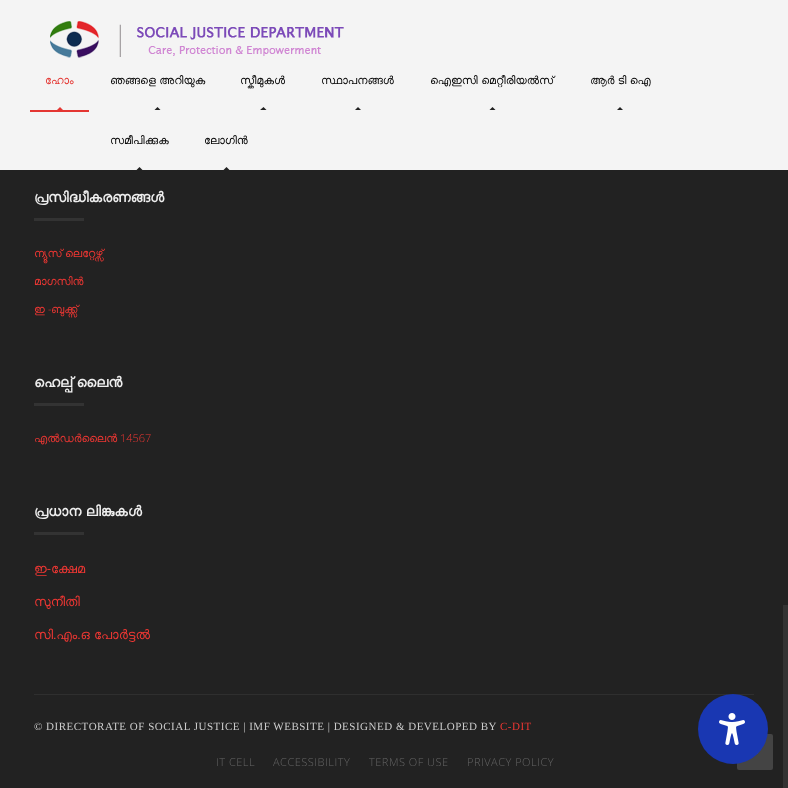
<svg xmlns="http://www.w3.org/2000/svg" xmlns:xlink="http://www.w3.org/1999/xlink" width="788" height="788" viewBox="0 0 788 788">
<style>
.cls-1{font:11px FreeSans;fill:#e43632}
.cls-2{font:11px FreeSans;fill:#020202}
.cls-3{font:bold 14px FreeSans;fill:#eeeeee}
.cls-4{font:11px FreeSans;fill:#ee3733}
.cls-5{font:300 11px Open Sans;fill:#ee3733}
.cls-6{font:13px FreeSans;fill:#ee3733}
.cls-7{font:11px Liberation Serif;letter-spacing:0.5px;fill:#cccccc}
.cls-8{font:11px Liberation Serif;letter-spacing:0.5px;fill:#ee3733}
.cls-9{font:300 11px Open Sans;letter-spacing:0.5px;fill:#666666}
</style>
<defs>
<clipPath id="clip1"><rect x="30" y="50" width="59" height="60"/></clipPath>
<clipPath id="clip2"><rect x="95" y="50" width="124" height="60"/></clipPath>
<clipPath id="clip3"><rect x="225" y="50" width="75" height="60"/></clipPath>
<clipPath id="clip4"><rect x="306" y="50" width="103" height="60"/></clipPath>
<clipPath id="clip5"><rect x="415" y="50" width="154" height="60"/></clipPath>
<clipPath id="clip6"><rect x="575" y="50" width="89" height="60"/></clipPath>
<clipPath id="clip7"><rect x="95" y="110" width="88" height="60"/></clipPath>
<clipPath id="clip8"><rect x="189" y="110" width="74" height="60"/></clipPath>
</defs>
<rect width="100%" height="100%" fill="#222222"/>
<rect fill="#f4f4f4" x="0" y="0" width="788" height="170"/>
<image xlink:href="image0.png" x="50" y="21" width="294" height="37"/>
<rect fill="#e43632" x="30" y="110" width="59" height="2"/>
<g clip-path="url(#clip1)">
<path fill="#e43632" d="M60 107L63.5 110.5L60 114L56.5 110.5Z"/>
</g>
<g clip-path="url(#clip2)">
<path fill="#222222" d="M157.5 107L161 110.5L157.5 114L154 110.5Z"/>
</g>
<g clip-path="url(#clip3)">
<path fill="#222222" d="M263.5 107L267 110.5L263.5 114L259.5 110.5Z"/>
</g>
<g clip-path="url(#clip4)">
<path fill="#222222" d="M358 107L361.5 110.5L358 114L354.5 110.5Z"/>
</g>
<g clip-path="url(#clip5)">
<path fill="#222222" d="M492.5 107L496 110.5L492.5 114L489 110.5Z"/>
</g>
<g clip-path="url(#clip6)">
<path fill="#222222" d="M620 107L623.5 110.5L620 114L616.5 110.5Z"/>
</g>
<g clip-path="url(#clip7)">
<path fill="#222222" d="M139.5 167L143 170.5L139.5 174L136 170.5Z"/>
</g>
<g clip-path="url(#clip8)">
<path fill="#222222" d="M226.5 167L230 170.5L226.5 174L223 170.5Z"/>
</g>
<rect fill="#333333" x="34" y="218" width="50" height="3"/>
<rect fill="#333333" x="34" y="403" width="50" height="3"/>
<rect fill="#333333" x="34" y="532" width="50" height="3"/>
<rect fill="#2f2f2f" x="34" y="694" width="720" height="1"/>
<rect fill="#444444" x="737" y="734" width="36" height="36" rx="2"/>
<image xlink:href="image2.png" x="757" y="753" width="1" height="1"/>
<circle fill="#1937b2" cx="733" cy="729" r="35"/>
<image xlink:href="image1.png" x="719" y="713" width="26" height="32"/>
<rect fill="#333333" x="783" y="605" width="5" height="183"/>
<text class="cls-1" x="45" y="84">ഹോം</text>
<text class="cls-2" x="110" y="84" word-spacing="-1">ഞങ്ങളെ അറിയുക</text>
<text class="cls-2" x="240" y="84">സ്കീമുകൾ</text>
<text class="cls-2" x="321" y="84">സ്ഥാപനങ്ങൾ</text>
<text class="cls-2" x="430" y="84" word-spacing="-1">ഐഇസി മെറ്റീരിയൽസ്</text>
<text class="cls-2" x="590" y="84" word-spacing="-1">ആർ ടി ഐ</text>
<text class="cls-2" x="110" y="144">സമീപിക്കുക</text>
<text class="cls-2" x="204" y="144">ലോഗിൻ</text>
<text class="cls-3" x="34" y="202">പ്രസിദ്ധീകരണങ്ങൾ</text>
<text class="cls-4" x="34" y="257" word-spacing="-1">ന്യൂസ് ലെറ്റേഴ്സ്</text>
<text class="cls-4" x="34" y="285">മാഗസിൻ</text>
<text class="cls-4" x="34" y="313">ഇ</text>
<text class="cls-5" x="48" y="313">-</text>
<text class="cls-4" x="51" y="313">ബുക്ക്സ്</text>
<text class="cls-3" x="34" y="387" word-spacing="-1">ഹെല്പ് ലൈൻ</text>
<text class="cls-4" x="34" y="442">എൽഡർലൈൻ</text>
<text class="cls-5" x="120" y="442">14567</text>
<text class="cls-3" x="34" y="516" word-spacing="-1">പ്രധാന ലിങ്കുകള്‍</text>
<text class="cls-6" x="34" y="573">ഇ-ക്ഷേമ</text>
<text class="cls-6" x="34" y="606">സുനീതി</text>
<text class="cls-6" x="34" y="639" word-spacing="-1">സി.എം.ഒ പോര്‍ട്ടല്‍</text>
<text class="cls-7" x="34" y="730">© DIRECTORATE OF SOCIAL JUSTICE | IMF WEBSITE | DESIGNED &amp; DEVELOPED BY</text>
<text class="cls-8" x="500" y="730">C-DIT</text>
<text class="cls-9" x="216" y="766">IT CELL</text>
<text class="cls-9" x="273" y="766">ACCESSIBILITY</text>
<text class="cls-9" x="369" y="766">TERMS OF USE</text>
<text class="cls-9" x="467" y="766">PRIVACY POLICY</text>
</svg>
